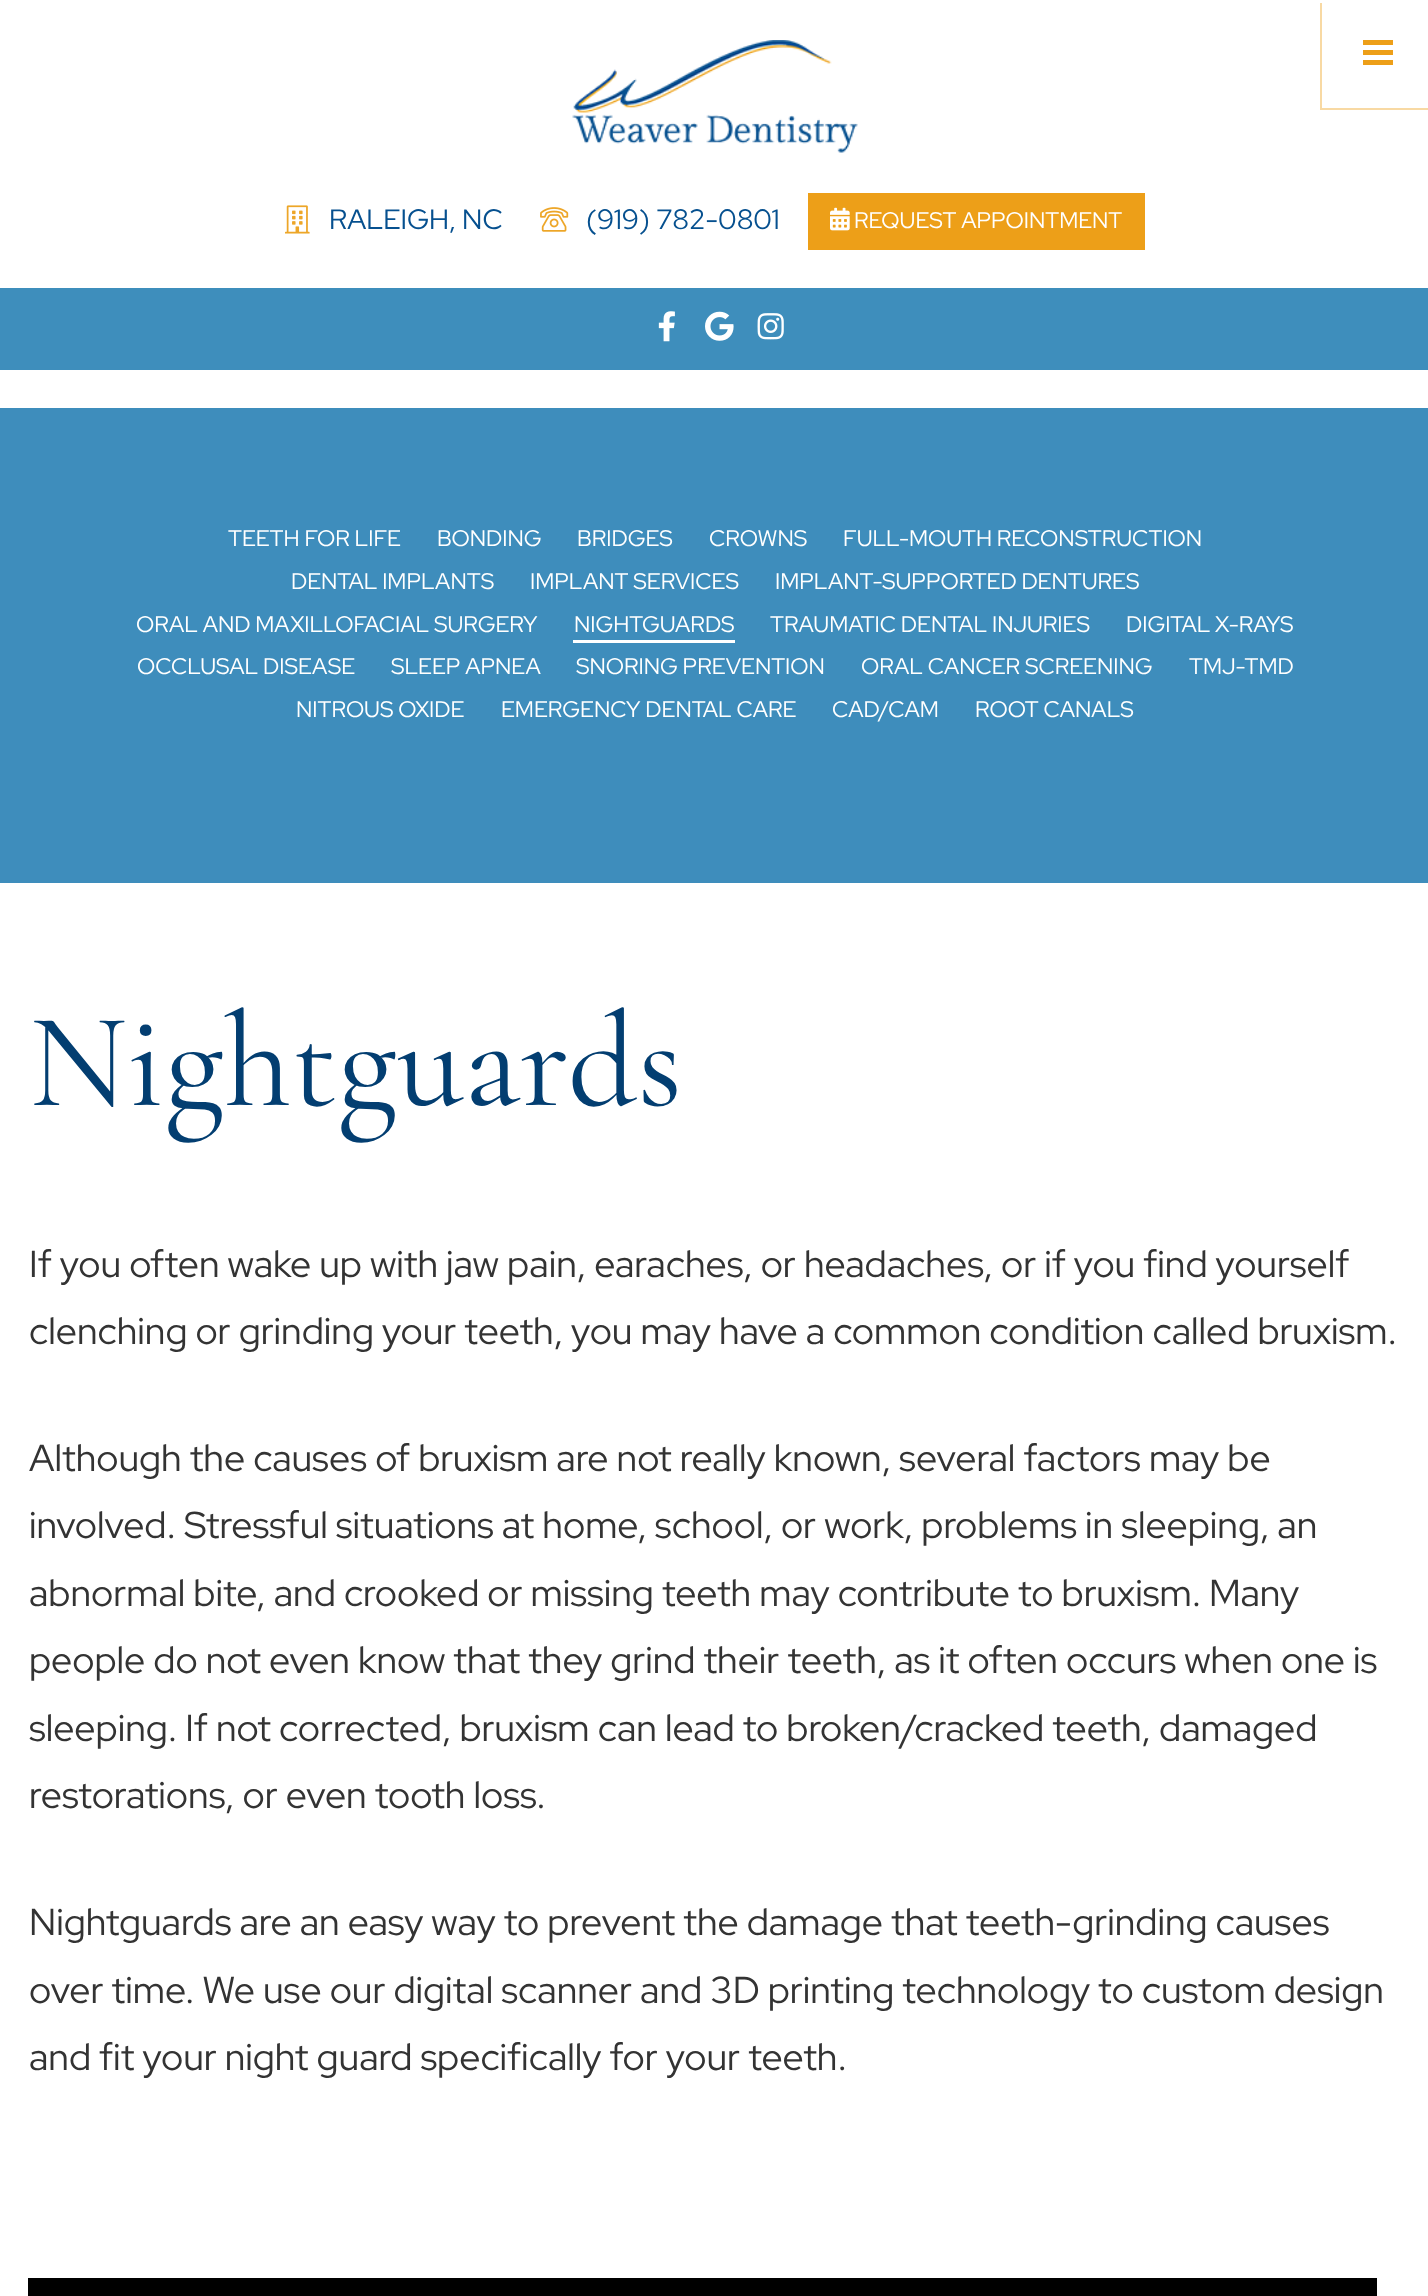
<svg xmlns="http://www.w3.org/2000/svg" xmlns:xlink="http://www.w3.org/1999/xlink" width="1428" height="2296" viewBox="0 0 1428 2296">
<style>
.cls-1{font:28px Red Hat Display;fill:#06508f}
.cls-2{font:22.5px Red Hat Display;fill:#ffffff}
.cls-3{font:300 135px Cormorant Garamond;fill:#033e71}
.cls-4{font:37.5px Red Hat Display;fill:#333333}
</style>
<rect width="100%" height="100%" fill="#ffffff"/>
<path fill="#f8d9a3" d="M1320 3V110H1428V108H1322V3Z"/>
<rect fill="#ed9f18" x="1363" y="40" width="30" height="5"/>
<rect fill="#ed9f18" x="1363" y="50" width="30" height="5"/>
<rect fill="#ed9f18" x="1363" y="60" width="30" height="5"/>
<image xlink:href="image0.png" x="572" y="40" width="286" height="113"/>
<image xlink:href="image1.png" x="285" y="205" width="25" height="29"/>
<image xlink:href="image2.png" x="540" y="207" width="29" height="25"/>
<rect fill="#ed9f18" x="808" y="193" width="337" height="57"/>
<image xlink:href="image3.png" x="830" y="207" width="20" height="24"/>
<rect fill="#3e8ebc" x="0" y="288" width="1428" height="82"/>
<image xlink:href="image4.png" x="658" y="311" width="17" height="31"/>
<image xlink:href="image5.png" x="705" y="311" width="29" height="30"/>
<image xlink:href="image6.png" x="757" y="313" width="27" height="27"/>
<rect fill="#3e8dbc" x="0" y="408" width="1428" height="475"/>
<rect fill="#ffffff" x="573" y="640" width="162" height="3"/>
<rect fill="#000000" x="28" y="2278" width="1349" height="18"/>
<text class="cls-1" x="329" y="229">RALEIGH, NC</text>
<text class="cls-1" x="586" y="229">(919) 782-0801</text>
<text class="cls-2" x="854" y="228">REQUEST APPOINTMENT</text>
<text class="cls-2" x="228" y="546">TEETH FOR LIFE</text>
<text class="cls-2" x="437" y="546">BONDING</text>
<text class="cls-2" x="577" y="546">BRIDGES</text>
<text class="cls-2" x="709" y="546">CROWNS</text>
<text class="cls-2" x="843" y="546">FULL-MOUTH RECONSTRUCTION</text>
<text class="cls-2" x="291" y="589">DENTAL IMPLANTS</text>
<text class="cls-2" x="530" y="589">IMPLANT SERVICES</text>
<text class="cls-2" x="775" y="589">IMPLANT-SUPPORTED DENTURES</text>
<text class="cls-2" x="136" y="632">ORAL AND MAXILLOFACIAL SURGERY</text>
<text class="cls-2" x="574" y="632">NIGHTGUARDS</text>
<text class="cls-2" x="770" y="632">TRAUMATIC DENTAL INJURIES</text>
<text class="cls-2" x="1126" y="632">DIGITAL X-RAYS</text>
<text class="cls-2" x="137" y="674">OCCLUSAL DISEASE</text>
<text class="cls-2" x="391" y="674">SLEEP APNEA</text>
<text class="cls-2" x="576" y="674">SNORING PREVENTION</text>
<text class="cls-2" x="861" y="674">ORAL CANCER SCREENING</text>
<text class="cls-2" x="1189" y="674">TMJ-TMD</text>
<text class="cls-2" x="296" y="717">NITROUS OXIDE</text>
<text class="cls-2" x="501" y="717">EMERGENCY DENTAL CARE</text>
<text class="cls-2" x="832" y="717">CAD/CAM</text>
<text class="cls-2" x="975" y="717">ROOT CANALS</text>
<text class="cls-3" x="29" y="1105">Nightguards</text>
<text class="cls-4"><tspan x="29" y="1277">If you often wake up with jaw pain, earaches, or headaches, or if you find yourself</tspan><tspan x="29" y="1344">clenching or grinding your teeth, you may have a common condition called bruxism.</tspan></text>
<text class="cls-4"><tspan x="29" y="1471">Although the causes of bruxism are not really known, several factors may be</tspan><tspan x="29" y="1538">involved. Stressful situations at home, school, or work, problems in sleeping, an</tspan><tspan x="29" y="1606">abnormal bite, and crooked or missing teeth may contribute to bruxism. Many</tspan><tspan x="29" y="1673">people do not even know that they grind their teeth, as it often occurs when one is</tspan><tspan x="29" y="1741">sleeping. If not corrected, bruxism can lead to broken/cracked teeth, damaged</tspan><tspan x="29" y="1808">restorations, or even tooth loss.</tspan></text>
<text class="cls-4"><tspan x="29" y="1935">Nightguards are an easy way to prevent the damage that teeth-grinding causes</tspan><tspan x="29" y="2003">over time. We use our digital scanner and 3D printing technology to custom design</tspan><tspan x="29" y="2070">and fit your night guard specifically for your teeth.</tspan></text>
</svg>
